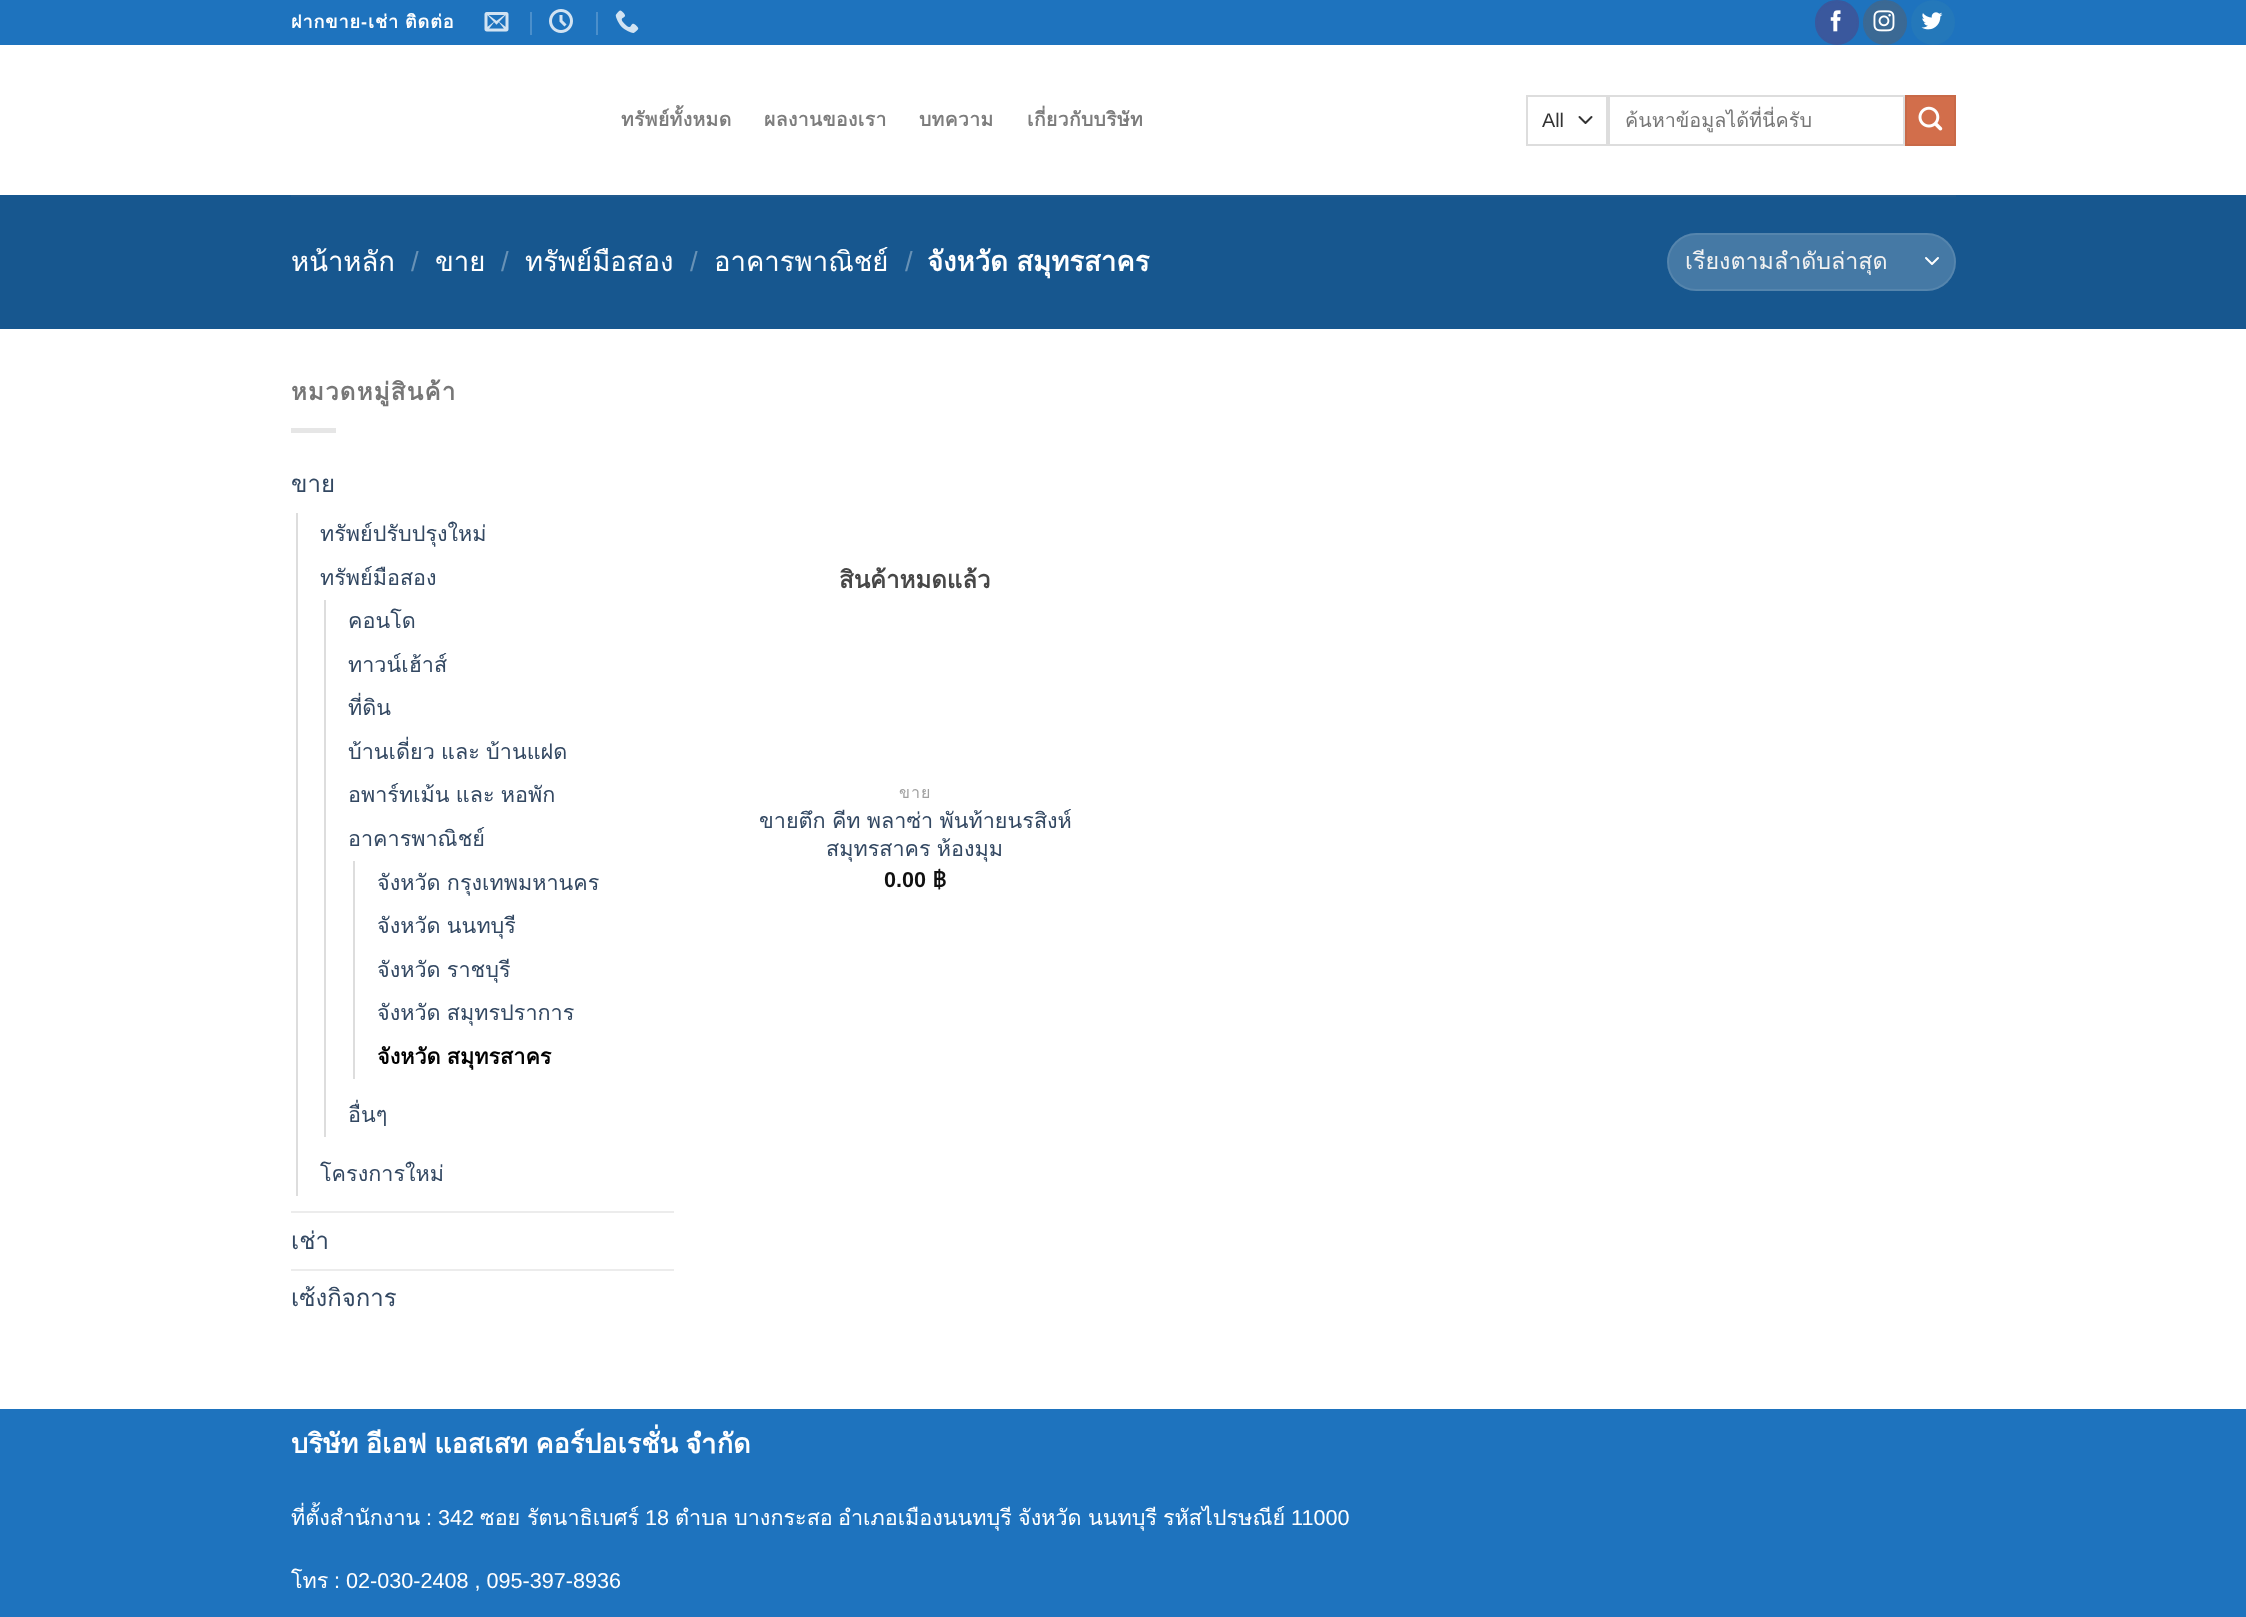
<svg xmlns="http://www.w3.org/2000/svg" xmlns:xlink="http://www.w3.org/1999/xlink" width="2246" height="1617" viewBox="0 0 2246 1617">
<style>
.cls-1{font:bold 18px Loma;letter-spacing:0.9px;fill:#ffffff}
.cls-2{font:bold 18px Liberation Sans;letter-spacing:0.9px;fill:#ffffff}
.cls-3{font:bold 19.25px Loma;letter-spacing:0.4px;fill:#7d7d7d}
.cls-4{font:19.75px Liberation Sans;fill:#333333}
.cls-5{font:19.75px Loma;fill:#777777}
.cls-6{font:27.5px Loma;fill:#ffffff}
.cls-7{font:27.5px Liberation Sans;fill:#6892b6}
.cls-8{font:bold 27.5px Loma;fill:#ffffff}
.cls-9{font:23.25px Loma;fill:#f1f1f1}
.cls-10{font:bold 24px Loma;letter-spacing:1.25px;fill:#777777}
.cls-11{font:24px Loma;fill:#334862}
.cls-12{font:21.6px Loma;fill:#334862}
.cls-13{font:bold 21.6px Loma;fill:#000000}
.cls-14{font:bold 24px Loma;fill:#474747}
.cls-15{font:16px Loma;letter-spacing:1px;fill:#a0a0a0}
.cls-16{font:bold 21.6px Liberation Sans;fill:#111111}
.cls-17{font:bold 21.6px Lato;fill:#111111}
.cls-18{font:bold 27px Loma;fill:#ffffff}
.cls-19{font:21.6px Loma;fill:#ffffff}
.cls-20{font:21.6px Liberation Sans;fill:#ffffff}
</style>
<defs>
<clipPath id="clip1"><rect x="1625" y="105" width="258" height="32"/></clipPath>
<clipPath id="clip2"><rect x="1685" y="243" width="237" height="38"/></clipPath>
</defs>
<rect width="100%" height="100%" fill="#ffffff"/>
<rect fill="#1e73be" x="0" y="0" width="2246" height="45"/>
<image xlink:href="image0.png" x="484" y="12" width="25" height="20"/>
<rect fill="#4b8fcb" x="530" y="12" width="2" height="23"/>
<image xlink:href="image1.png" x="549" y="9" width="24" height="24"/>
<rect fill="#4b8fcb" x="596" y="12" width="2" height="23"/>
<image xlink:href="image2.png" x="615" y="10" width="24" height="23"/>
<rect fill="#3a589d" stroke="#3a589d" stroke-width="2" x="1816" y="1" width="42" height="43" rx="21"/>
<image xlink:href="image3.png" x="1830" y="10" width="11" height="22"/>
<rect fill="#3b6994" stroke="#3b6994" stroke-width="2" x="1864" y="1" width="42" height="43" rx="21"/>
<image xlink:href="image4.png" x="1873" y="10" width="22" height="22"/>
<rect fill="#2478ba" x="1911" y="0" width="44" height="45" rx="22"/>
<image xlink:href="image5.png" x="1921" y="12" width="22" height="18"/>
<path fill="none" stroke="#333333" stroke-width="2" stroke-linecap="round" stroke-linejoin="round" d="M1579.5 117L1585.5 123L1591.5 117"/>
<rect fill="none" stroke="#dddddd" stroke-width="2" x="1527" y="96" width="80" height="49"/>
<rect fill="none" stroke="#dddddd" stroke-width="2" x="1609" y="96" width="295" height="49"/>
<rect fill="#d26e4b" stroke="#c86947" stroke-width="2" x="1906" y="96" width="49" height="49"/>
<image xlink:href="image6.png" x="1918" y="106" width="25" height="25"/>
<rect fill="#17578f" x="0" y="195" width="2246" height="134"/>
<rect fill="#215a8d" x="291" y="195" width="1665" height="2"/>
<rect fill="#4579a5" x="1667" y="233" width="289" height="58" rx="29"/>
<path fill="none" stroke="#ffffff" stroke-width="2" stroke-linecap="round" stroke-linejoin="round" d="M1926 258L1932 264L1938 258"/>
<rect fill="none" stroke="#ffffff" stroke-opacity="0.09" stroke-width="2" x="1668" y="234" width="287" height="56" rx="28"/>
<rect fill="#e6e6e6" x="291" y="428" width="45" height="5"/>
<rect fill="#dddddd" x="296" y="513" width="2" height="683"/>
<rect fill="#dddddd" x="324" y="600" width="2" height="537"/>
<rect fill="#dddddd" x="353" y="861" width="2" height="218"/>
<rect fill="#ececec" x="291" y="1211" width="383" height="2"/>
<rect fill="#ececec" x="291" y="1269" width="383" height="2"/>
<rect fill="#1e73be" x="0" y="1409" width="2246" height="208"/>
<text class="cls-1" x="291" y="28">ฝากขาย เช่า</text>
<text class="cls-1" x="405" y="28">ติดต่อ</text>
<text class="cls-2" x="361" y="28">-</text>
<text class="cls-3" x="621" y="126">ทรัพย์ทั้งหมด</text>
<text class="cls-3" x="764" y="126">ผลงานของเรา</text>
<text class="cls-3" x="919" y="126">บทความ</text>
<text class="cls-3" x="1027" y="126">เกี่ยวกับบริษัท</text>
<text class="cls-4" x="1542" y="127">All</text>
<g clip-path="url(#clip1)">
<text class="cls-5" x="1625" y="127">ค้นหาข้อมูลได้ที่นี่ครับ</text>
</g>
<text class="cls-6" x="291" y="271">หน้าหลัก</text>
<text class="cls-7" x="411" y="271">/</text>
<text class="cls-6" x="435" y="271">ขาย</text>
<text class="cls-7" x="501" y="271">/</text>
<text class="cls-6" x="525" y="271">ทรัพย์มือสอง</text>
<text class="cls-7" x="690" y="271">/</text>
<text class="cls-6" x="714" y="271">อาคารพาณิชย์</text>
<text class="cls-7" x="905" y="271">/</text>
<text class="cls-8" x="927" y="271" word-spacing="-1">จังหวัด สมุทรสาคร</text>
<g clip-path="url(#clip2)">
<text class="cls-9" x="1685" y="269">เรียงตามลำดับล่าสุด</text>
</g>
<text class="cls-10" x="291" y="400">หมวดหมู่สินค้า</text>
<text class="cls-11" x="291" y="492">ขาย</text>
<text class="cls-12" x="320" y="541">ทรัพย์ปรับปรุงใหม่</text>
<text class="cls-12" x="320" y="585">ทรัพย์มือสอง</text>
<text class="cls-12" x="348" y="628">คอนโด</text>
<text class="cls-12"><tspan x="348" y="672">ทาวน์เฮ้าส์</tspan><tspan x="348" y="715">ที่ดิน</tspan></text>
<text class="cls-12"><tspan x="348" y="759" word-spacing="-1">บ้านเดี่ยว และ บ้านแฝด</tspan><tspan x="348" y="802" word-spacing="-1">อพาร์ทเม้น และ หอพัก</tspan></text>
<text class="cls-12" x="348" y="846">อาคารพาณิชย์</text>
<text class="cls-12"><tspan x="377" y="890" word-spacing="-1">จังหวัด กรุงเทพมหานคร</tspan><tspan x="377" y="933" word-spacing="-1">จังหวัด นนทบุรี</tspan></text>
<text class="cls-12"><tspan x="377" y="977" word-spacing="-1">จังหวัด ราชบุรี</tspan><tspan x="377" y="1020" word-spacing="-1">จังหวัด สมุทรปราการ</tspan></text>
<text class="cls-13" x="377" y="1064" word-spacing="-1">จังหวัด สมุทรสาคร</text>
<text class="cls-12" x="348" y="1122">อื่นๆ</text>
<text class="cls-12" x="320" y="1181">โครงการใหม่</text>
<text class="cls-11" x="291" y="1249">เช่า</text>
<text class="cls-11" x="291" y="1306">เซ้งกิจการ</text>
<text class="cls-14" x="839" y="588">สินค้าหมดแล้ว</text>
<text class="cls-15" x="899" y="798">ขาย</text>
<text class="cls-12" x="759" y="828" word-spacing="-1">ขายตึก คีท พลาซ่า พันท้ายนรสิงห์</text>
<text class="cls-12" x="826" y="856" word-spacing="-1">สมุทรสาคร ห้องมุม</text>
<text class="cls-16" x="884" y="887">0.00</text>
<text class="cls-17" x="932" y="887">฿</text>
<text class="cls-18" x="291" y="1453" word-spacing="-1.5">บริษัท อีเอฟ แอสเสท คอร์ปอเรชั่น จำกัด</text>
<text class="cls-19" x="291" y="1525">ที่ตั้งสำนักงาน</text>
<text class="cls-20" x="426" y="1525">: 342</text>
<text class="cls-19" x="480" y="1525">ซอย</text>
<text class="cls-19" x="527" y="1525">รัตนาธิเบศร์</text>
<text class="cls-20" x="645" y="1525">18</text>
<text class="cls-19" x="675" y="1525">ตำบล</text>
<text class="cls-19" x="734" y="1525">บางกระสอ</text>
<text class="cls-19" x="838" y="1525">อำเภอเมืองนนทบุรี</text>
<text class="cls-19" x="1018" y="1525">จังหวัด</text>
<text class="cls-19" x="1088" y="1525">นนทบุรี</text>
<text class="cls-19" x="1163" y="1525">รหัสไปรษณีย์</text>
<text class="cls-20" x="1291" y="1525">11000</text>
<text class="cls-19" x="291" y="1588">โทร</text>
<text class="cls-20" x="334" y="1588">: 02-030-2408 , 095-397-8936</text>
</svg>
